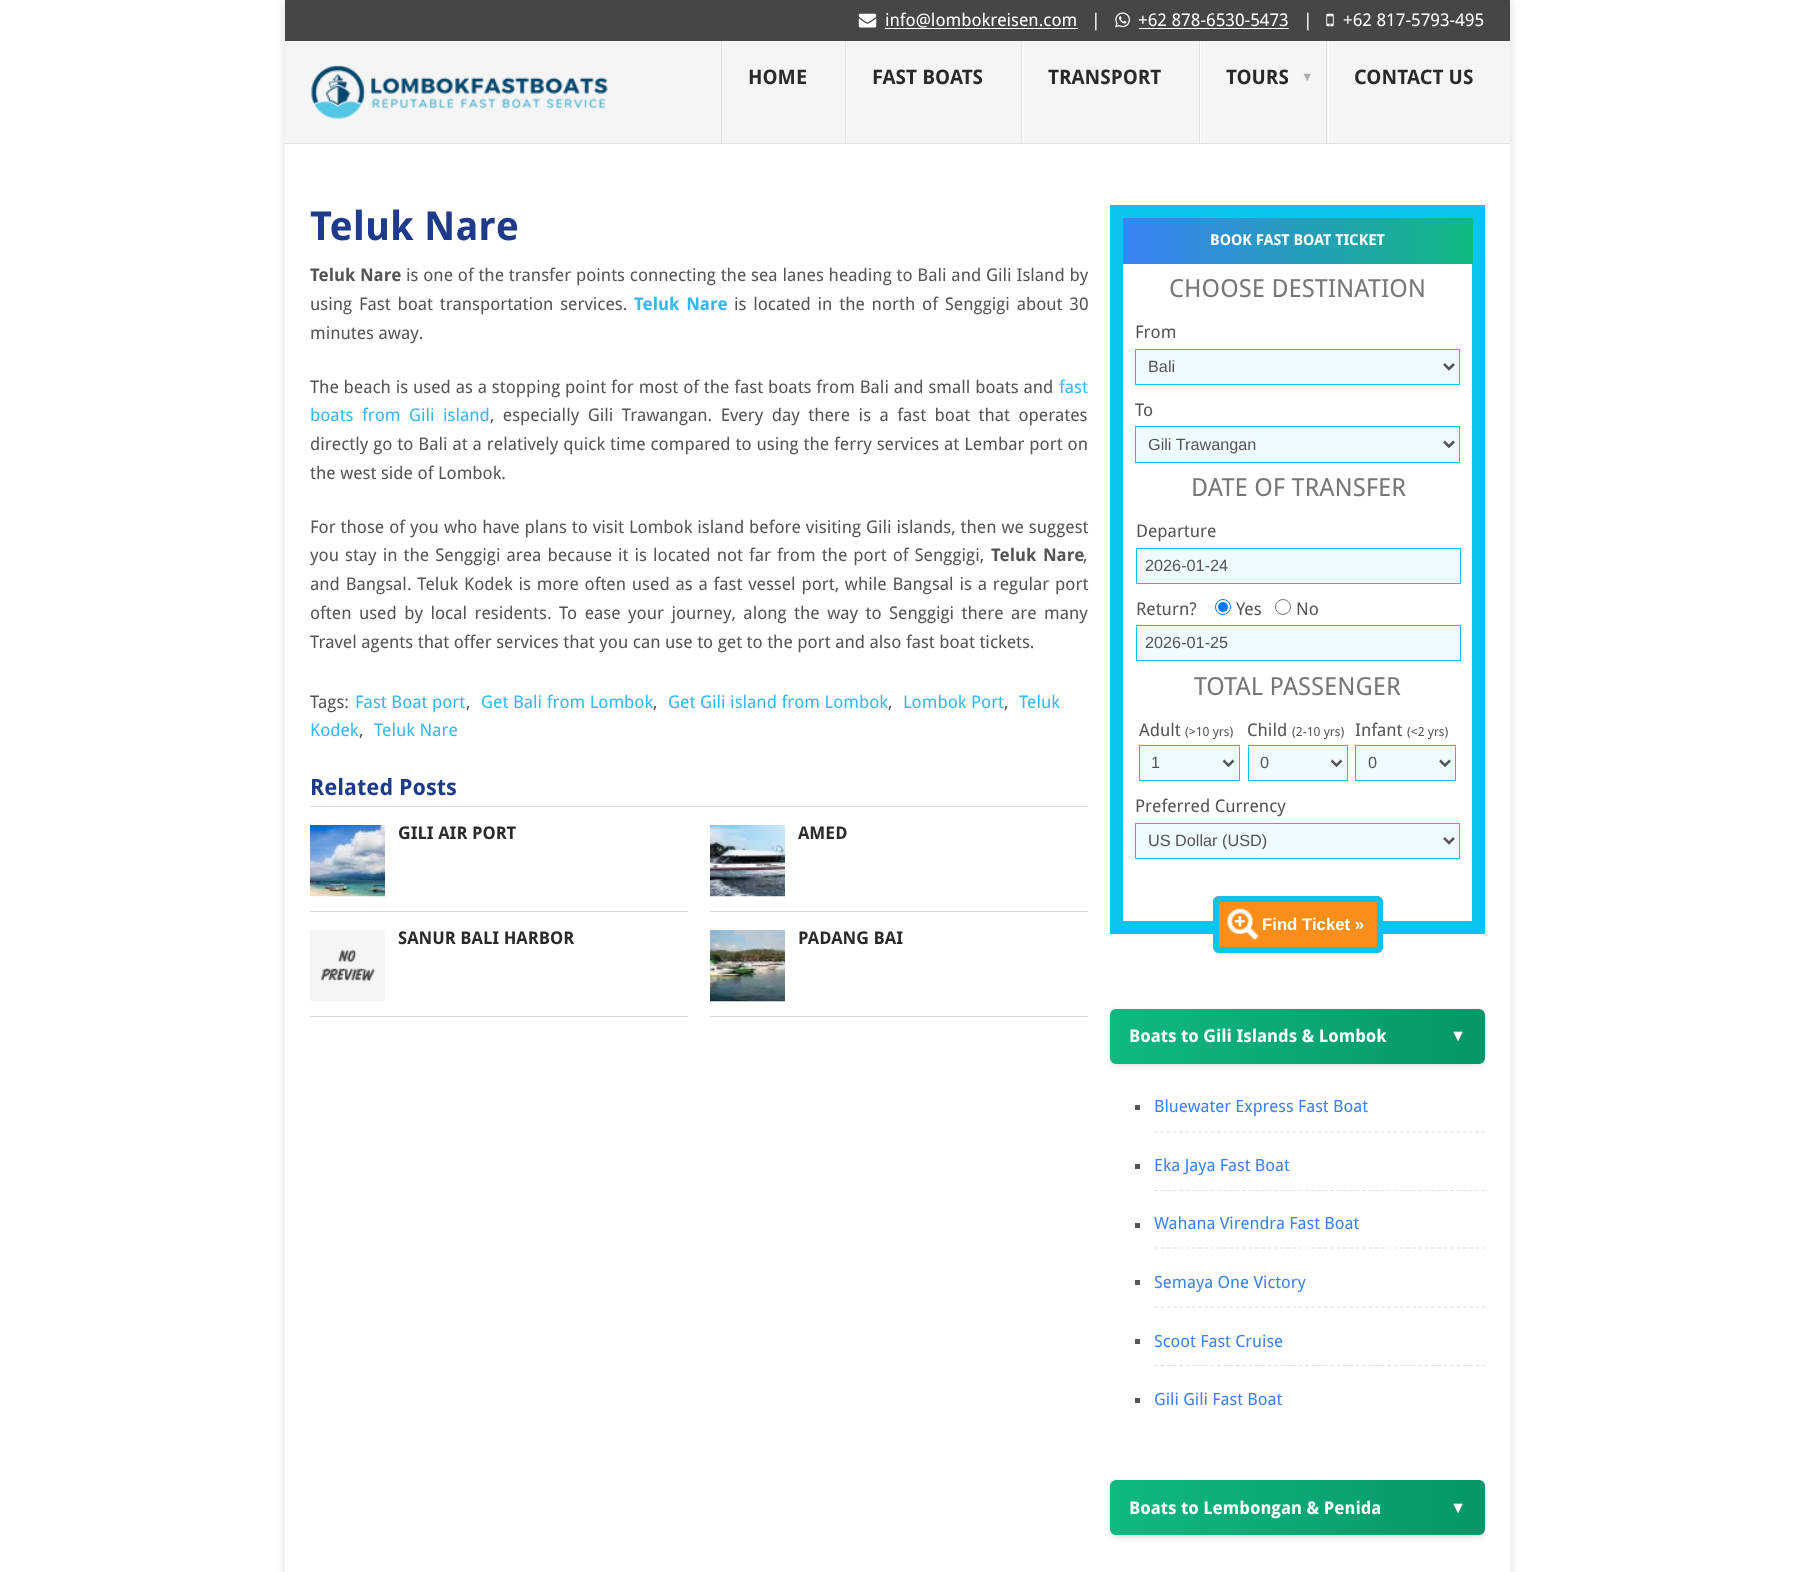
<svg xmlns="http://www.w3.org/2000/svg" xmlns:xlink="http://www.w3.org/1999/xlink" width="1795" height="1572" viewBox="0 0 1795 1572">
<style>
.cls-1{font:17.5px Droid Sans;fill:#ffffff}
.cls-2{font:bold 20px Droid Sans;fill:#2a2a2a}
.cls-3{font:bold 12.5px Liberation Sans;fill:#adadad}
.cls-4{font:bold 40px Droid Sans;fill:#1e3a8a}
.cls-5{font:bold 17.5px Droid Sans;fill:#555555}
.cls-6{font:17.5px Droid Sans;fill:#555555}
.cls-7{font:bold 17.5px Droid Sans;fill:#38b7ee}
.cls-8{font:17.5px Droid Sans;fill:#38b7ee}
.cls-9{font:bold 22.5px Droid Sans;fill:#1e3a8a}
.cls-10{font:bold 17.5px Droid Sans;fill:#2a2a2a}
.cls-11{font:bold 15px Droid Sans;fill:#ffffff}
.cls-12{font:25px Droid Sans;fill:#777777}
.cls-13{font:16.25px Liberation Sans;fill:#555555}
.cls-14{font:12.5px Droid Sans;fill:#555555}
.cls-15{font:bold 16.75px Liberation Sans;fill:#ffffff}
.cls-16{font:bold 17.5px Droid Sans;fill:#ffffff}
.cls-17{font:16.25px Liberation Sans;fill:#ffffff}
.cls-18{font:16.9px Droid Sans;fill:#3b82f6}
</style>
<defs>
<clipPath id="clip1"><path d="M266 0H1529V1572H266ZM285 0H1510V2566H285Z" clip-rule="evenodd"/></clipPath>
<linearGradient id="g1" gradientUnits="userSpaceOnUse" x1="1123" y1="241" x2="1473" y2="241"><stop offset="0" stop-color="#3b82f6"/><stop offset="1" stop-color="#10b981"/></linearGradient>
<clipPath id="clip2"><rect x="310" y="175" width="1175" height="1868"/></clipPath>
<linearGradient id="g2" gradientUnits="userSpaceOnUse" x1="1110" y1="1036" x2="1485" y2="1036"><stop offset="0" stop-color="#10b981"/><stop offset="1" stop-color="#059669"/></linearGradient>
<linearGradient id="g3" gradientUnits="userSpaceOnUse" x1="1110" y1="1508" x2="1485" y2="1508"><stop offset="0" stop-color="#10b981"/><stop offset="1" stop-color="#059669"/></linearGradient>
</defs>
<rect width="100%" height="100%" fill="#ffffff"/>
<g clip-path="url(#clip1)">
<rect fill="#323232" fill-opacity="0.17" filter="blur(6px)" x="285" y="0" width="1225" height="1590"/>
</g>
<rect fill="#474545" x="285" y="0" width="1225" height="41"/>
<image xlink:href="image0.png" x="858" y="13" width="19" height="15"/>
<rect fill="#ffffff" x="885" y="28" width="193" height="1"/>
<image xlink:href="image1.png" x="1115" y="12" width="15" height="16"/>
<rect fill="#ffffff" x="1139" y="28" width="150" height="1"/>
<image xlink:href="image2.png" x="1326" y="13" width="8" height="14"/>
<rect fill="#f5f5f5" x="285" y="41" width="1225" height="102"/>
<image xlink:href="image3.png" x="311" y="65" width="297" height="54"/>
<rect fill="#e2e2e2" x="845" y="41" width="1" height="103"/>
<rect fill="#e2e2e2" x="721" y="41" width="1" height="103"/>
<rect fill="#e2e2e2" x="1021" y="41" width="1" height="103"/>
<rect fill="#ffffff" x="846" y="41" width="1" height="103"/>
<rect fill="#e2e2e2" x="1199" y="41" width="1" height="103"/>
<rect fill="#ffffff" x="1023" y="41" width="1" height="103"/>
<rect fill="#e2e2e2" x="1326" y="41" width="1" height="103"/>
<rect fill="#ffffff" x="1200" y="41" width="1" height="103"/>
<rect fill="#ffffff" x="1328" y="41" width="1" height="103"/>
<rect fill="#e2e2e2" x="285" y="143" width="1225" height="1"/>
<rect fill="#d8d7d7" x="310" y="806" width="778" height="1"/>
<rect fill="#d8d7d7" x="310" y="911" width="378" height="1"/>
<image xlink:href="image4.png" x="310" y="825" width="75" height="72"/>
<rect fill="#d8d7d7" x="710" y="911" width="378" height="1"/>
<image xlink:href="image5.png" x="710" y="825" width="75" height="72"/>
<rect fill="#d8d7d7" x="310" y="1016" width="378" height="1"/>
<image xlink:href="image6.png" x="310" y="930" width="75" height="71"/>
<rect fill="#d8d7d7" x="710" y="1016" width="378" height="1"/>
<image xlink:href="image7.png" x="710" y="930" width="75" height="72"/>
<rect fill="none" stroke="#09c4ed" stroke-width="13" x="1116.5" y="211.5" width="362" height="716"/>
<rect fill="url(#g1)" x="1123" y="218" width="350" height="46"/>
<rect fill="#eefcff" stroke="#09c4ed" x="1135.5" y="349.5" width="324" height="35"/>
<path fill="none" stroke="#555555" stroke-width="2.5" d="M1444 364L1449 369L1454 364"/>
<rect fill="#eefcff" stroke="#09c4ed" x="1135.5" y="426.5" width="324" height="36"/>
<path fill="none" stroke="#555555" stroke-width="2.5" d="M1444 441.5L1449 446.5L1454 441.5"/>
<rect fill="#eefcff" stroke="#09c4ed" x="1136.5" y="548.5" width="324" height="35"/>
<circle fill="none" stroke="#0075ff" cx="1223" cy="607" r="7.5"/>
<circle fill="#0075ff" cx="1223" cy="607" r="5"/>
<circle fill="none" stroke="#767676" cx="1283" cy="607" r="7.5"/>
<rect fill="#eefcff" stroke="#09c4ed" x="1136.5" y="625.5" width="324" height="35"/>
<rect fill="#eefcff" stroke="#09c4ed" x="1139.5" y="745.5" width="100" height="35"/>
<path fill="none" stroke="#555555" stroke-width="2.5" d="M1223.5 760.5L1228.5 765.5L1233.5 760.5"/>
<rect fill="#eefcff" stroke="#09c4ed" x="1248.5" y="745.5" width="99" height="35"/>
<path fill="none" stroke="#555555" stroke-width="2.5" d="M1331.5 760.5L1336.5 765.5L1341.5 760.5"/>
<rect fill="#eefcff" stroke="#09c4ed" x="1355.5" y="745.5" width="100" height="35"/>
<path fill="none" stroke="#555555" stroke-width="2.5" d="M1440 760.5L1445 765.5L1450 760.5"/>
<rect fill="#eefcff" stroke="#09c4ed" x="1135.5" y="823.5" width="324" height="35"/>
<path fill="none" stroke="#555555" stroke-width="2.5" d="M1444 838L1449 843L1454 838"/>
<rect fill="#f98e1a" x="1213" y="896" width="170" height="57" rx="6"/>
<image xlink:href="image8.png" x="1227" y="908" width="32" height="33"/>
<rect fill="none" stroke="#09c4ed" stroke-width="6" x="1216" y="899" width="164" height="51" rx="3"/>
<g clip-path="url(#clip2)">
<rect fill="#000000" fill-opacity="0.1" filter="blur(3px)" x="1110" y="1011" width="375" height="55" rx="6"/>
</g>
<rect fill="url(#g2)" x="1110" y="1009" width="375" height="55" rx="6"/>
<path fill="none" stroke="#e0e0e0" stroke-width="1.2" stroke-dasharray="3.75 2.55" d="M1154 1132H1485"/>
<rect fill="#555555" x="1135" y="1105" width="5" height="5"/>
<path fill="none" stroke="#e0e0e0" stroke-width="1.2" stroke-dasharray="3.75 2.55" d="M1154 1190.5H1485"/>
<rect fill="#555555" x="1135" y="1164" width="5" height="5"/>
<path fill="none" stroke="#e0e0e0" stroke-width="1.2" stroke-dasharray="3.75 2.55" d="M1154 1248H1485"/>
<rect fill="#555555" x="1135" y="1223" width="5" height="5"/>
<path fill="none" stroke="#e0e0e0" stroke-width="1.2" stroke-dasharray="3.75 2.55" d="M1154 1307H1485"/>
<rect fill="#555555" x="1135" y="1280" width="5" height="5"/>
<path fill="none" stroke="#e0e0e0" stroke-width="1.2" stroke-dasharray="3.75 2.55" d="M1154 1365.5H1485"/>
<rect fill="#555555" x="1135" y="1339" width="5" height="5"/>
<rect fill="#555555" x="1135" y="1398" width="5" height="5"/>
<g clip-path="url(#clip2)">
<rect fill="#000000" fill-opacity="0.1" filter="blur(3px)" x="1110" y="1483" width="375" height="55" rx="6"/>
</g>
<rect fill="url(#g3)" x="1110" y="1480" width="375" height="55" rx="6"/>
<text class="cls-1" x="885" y="26">info@lombokreisen.com</text>
<text class="cls-1" x="1091" y="26">|</text>
<text class="cls-1" x="1138" y="26">+62 878-6530-5473</text>
<text class="cls-1" x="1303" y="26">|</text>
<text class="cls-1" x="1343" y="26">+62 817-5793-495</text>
<text class="cls-2" x="748" y="84">HOME</text>
<text class="cls-2" x="872" y="84">FAST BOATS</text>
<text class="cls-2" x="1048" y="84">TRANSPORT</text>
<text class="cls-2" x="1226" y="84">TOURS</text>
<text class="cls-3" x="1301" y="81">▼</text>
<text class="cls-2" x="1354" y="84">CONTACT US</text>
<text class="cls-4" x="310" y="240">Teluk Nare</text>
<text class="cls-5" x="310" y="281">Teluk Nare</text>
<text class="cls-6" x="406" y="281" word-spacing="0.25">is one of the transfer points connecting the sea lanes heading to Bali and Gili Island by</text>
<text class="cls-6" x="310" y="310" word-spacing="2.25">using Fast boat transportation services.</text>
<text class="cls-7" x="634" y="310" word-spacing="2.25">Teluk Nare</text>
<text class="cls-6" x="734" y="310" word-spacing="2.25">is located in the north of Senggigi about 30</text>
<text class="cls-6" x="310" y="339">minutes away.</text>
<text class="cls-6" x="310" y="393" word-spacing="0.3">The beach is used as a stopping point for most of the fast boats from Bali and small boats and</text>
<text class="cls-8" x="1059" y="393">fast</text>
<text class="cls-8" x="310" y="421" word-spacing="3.9">boats from Gili island</text>
<text class="cls-6" x="490" y="421" word-spacing="3.9">, especially Gili Trawangan. Every day there is a fast boat that operates</text>
<text class="cls-6"><tspan x="310" y="450" word-spacing="0.4">directly go to Bali at a relatively quick time compared to using the ferry services at Lembar port on</tspan><tspan x="310" y="479">the west side of Lombok.</tspan></text>
<text class="cls-6"><tspan x="310" y="533" word-spacing="0.4">For those of you who have plans to visit Lombok island before visiting Gili islands, then we suggest</tspan><tspan x="310" y="561" word-spacing="1.5">you stay in the Senggigi area because it is located not far from the port of Senggigi,</tspan></text>
<text class="cls-5" x="991" y="561" word-spacing="2">Teluk Nare</text>
<text class="cls-6" x="1083" y="561">,</text>
<text class="cls-6"><tspan x="310" y="590" word-spacing="1.25">and Bangsal. Teluk Kodek is more often used as a fast vessel port, while Bangsal is a regular port</tspan><tspan x="310" y="619" word-spacing="2.9">often used by local residents. To ease your journey, along the way to Senggigi there are many</tspan><tspan x="310" y="648">Travel agents that offer services that you can use to get to the port and also fast boat tickets.</tspan></text>
<text class="cls-6" x="310" y="708">Tags:</text>
<text class="cls-8" x="355" y="708">Fast Boat port</text>
<text class="cls-6" x="466" y="708">,</text>
<text class="cls-8" x="481" y="708">Get Bali from Lombok</text>
<text class="cls-6" x="653" y="708">,</text>
<text class="cls-8" x="668" y="708">Get Gili island from Lombok</text>
<text class="cls-6" x="888" y="708">,</text>
<text class="cls-8" x="903" y="708">Lombok Port</text>
<text class="cls-6" x="1004" y="708">,</text>
<text class="cls-8" x="1019" y="708">Teluk</text>
<text class="cls-8" x="310" y="736">Kodek</text>
<text class="cls-6" x="359" y="736">,</text>
<text class="cls-8" x="374" y="736">Teluk Nare</text>
<text class="cls-9" x="310" y="795">Related Posts</text>
<text class="cls-10" x="398" y="839">GILI AIR PORT</text>
<text class="cls-10" x="798" y="839">AMED</text>
<text class="cls-10" x="398" y="944">SANUR BALI HARBOR</text>
<text class="cls-10" x="798" y="944">PADANG BAI</text>
<text class="cls-11" x="1210" y="245">BOOK FAST BOAT TICKET</text>
<text class="cls-12" x="1169" y="297">CHOOSE DESTINATION</text>
<text class="cls-6" x="1135" y="338">From</text>
<text class="cls-13" x="1148" y="372">Bali</text>
<text class="cls-6" x="1135" y="416">To</text>
<text class="cls-13" x="1148" y="450">Gili Trawangan</text>
<text class="cls-12" x="1191" y="496">DATE OF TRANSFER</text>
<text class="cls-6" x="1136" y="537">Departure</text>
<text class="cls-13" x="1145" y="571">2026-01-24</text>
<text class="cls-6" x="1136" y="615">Return?</text>
<text class="cls-6" x="1236" y="615">Yes</text>
<text class="cls-6" x="1296" y="615">No</text>
<text class="cls-13" x="1145" y="648">2026-01-25</text>
<text class="cls-12" x="1194" y="695">TOTAL PASSENGER</text>
<text class="cls-6" x="1139" y="736">Adult</text>
<text class="cls-14" x="1185" y="736">(&gt;10 yrs)</text>
<text class="cls-13" x="1151" y="768">1</text>
<text class="cls-6" x="1247" y="736">Child</text>
<text class="cls-14" x="1292" y="736">(2-10 yrs)</text>
<text class="cls-13" x="1260" y="768">0</text>
<text class="cls-6" x="1355" y="736">Infant</text>
<text class="cls-14" x="1407" y="736">(&lt;2 yrs)</text>
<text class="cls-13" x="1368" y="768">0</text>
<text class="cls-6" x="1135" y="812">Preferred Currency</text>
<text class="cls-13" x="1148" y="846">US Dollar (USD)</text>
<text class="cls-15" x="1262" y="930">Find Ticket »</text>
<text class="cls-16" x="1129" y="1042">Boats to Gili Islands &amp; Lombok</text>
<text class="cls-17" x="1450" y="1041">▼</text>
<text class="cls-18" x="1154" y="1112">Bluewater Express Fast Boat</text>
<text class="cls-18" x="1154" y="1171">Eka Jaya Fast Boat</text>
<text class="cls-18" x="1154" y="1229">Wahana Virendra Fast Boat</text>
<text class="cls-18" x="1154" y="1288">Semaya One Victory</text>
<text class="cls-18" x="1154" y="1347">Scoot Fast Cruise</text>
<text class="cls-18" x="1154" y="1405">Gili Gili Fast Boat</text>
<text class="cls-16" x="1129" y="1514">Boats to Lembongan &amp; Penida</text>
<text class="cls-17" x="1450" y="1513">▼</text>
</svg>
